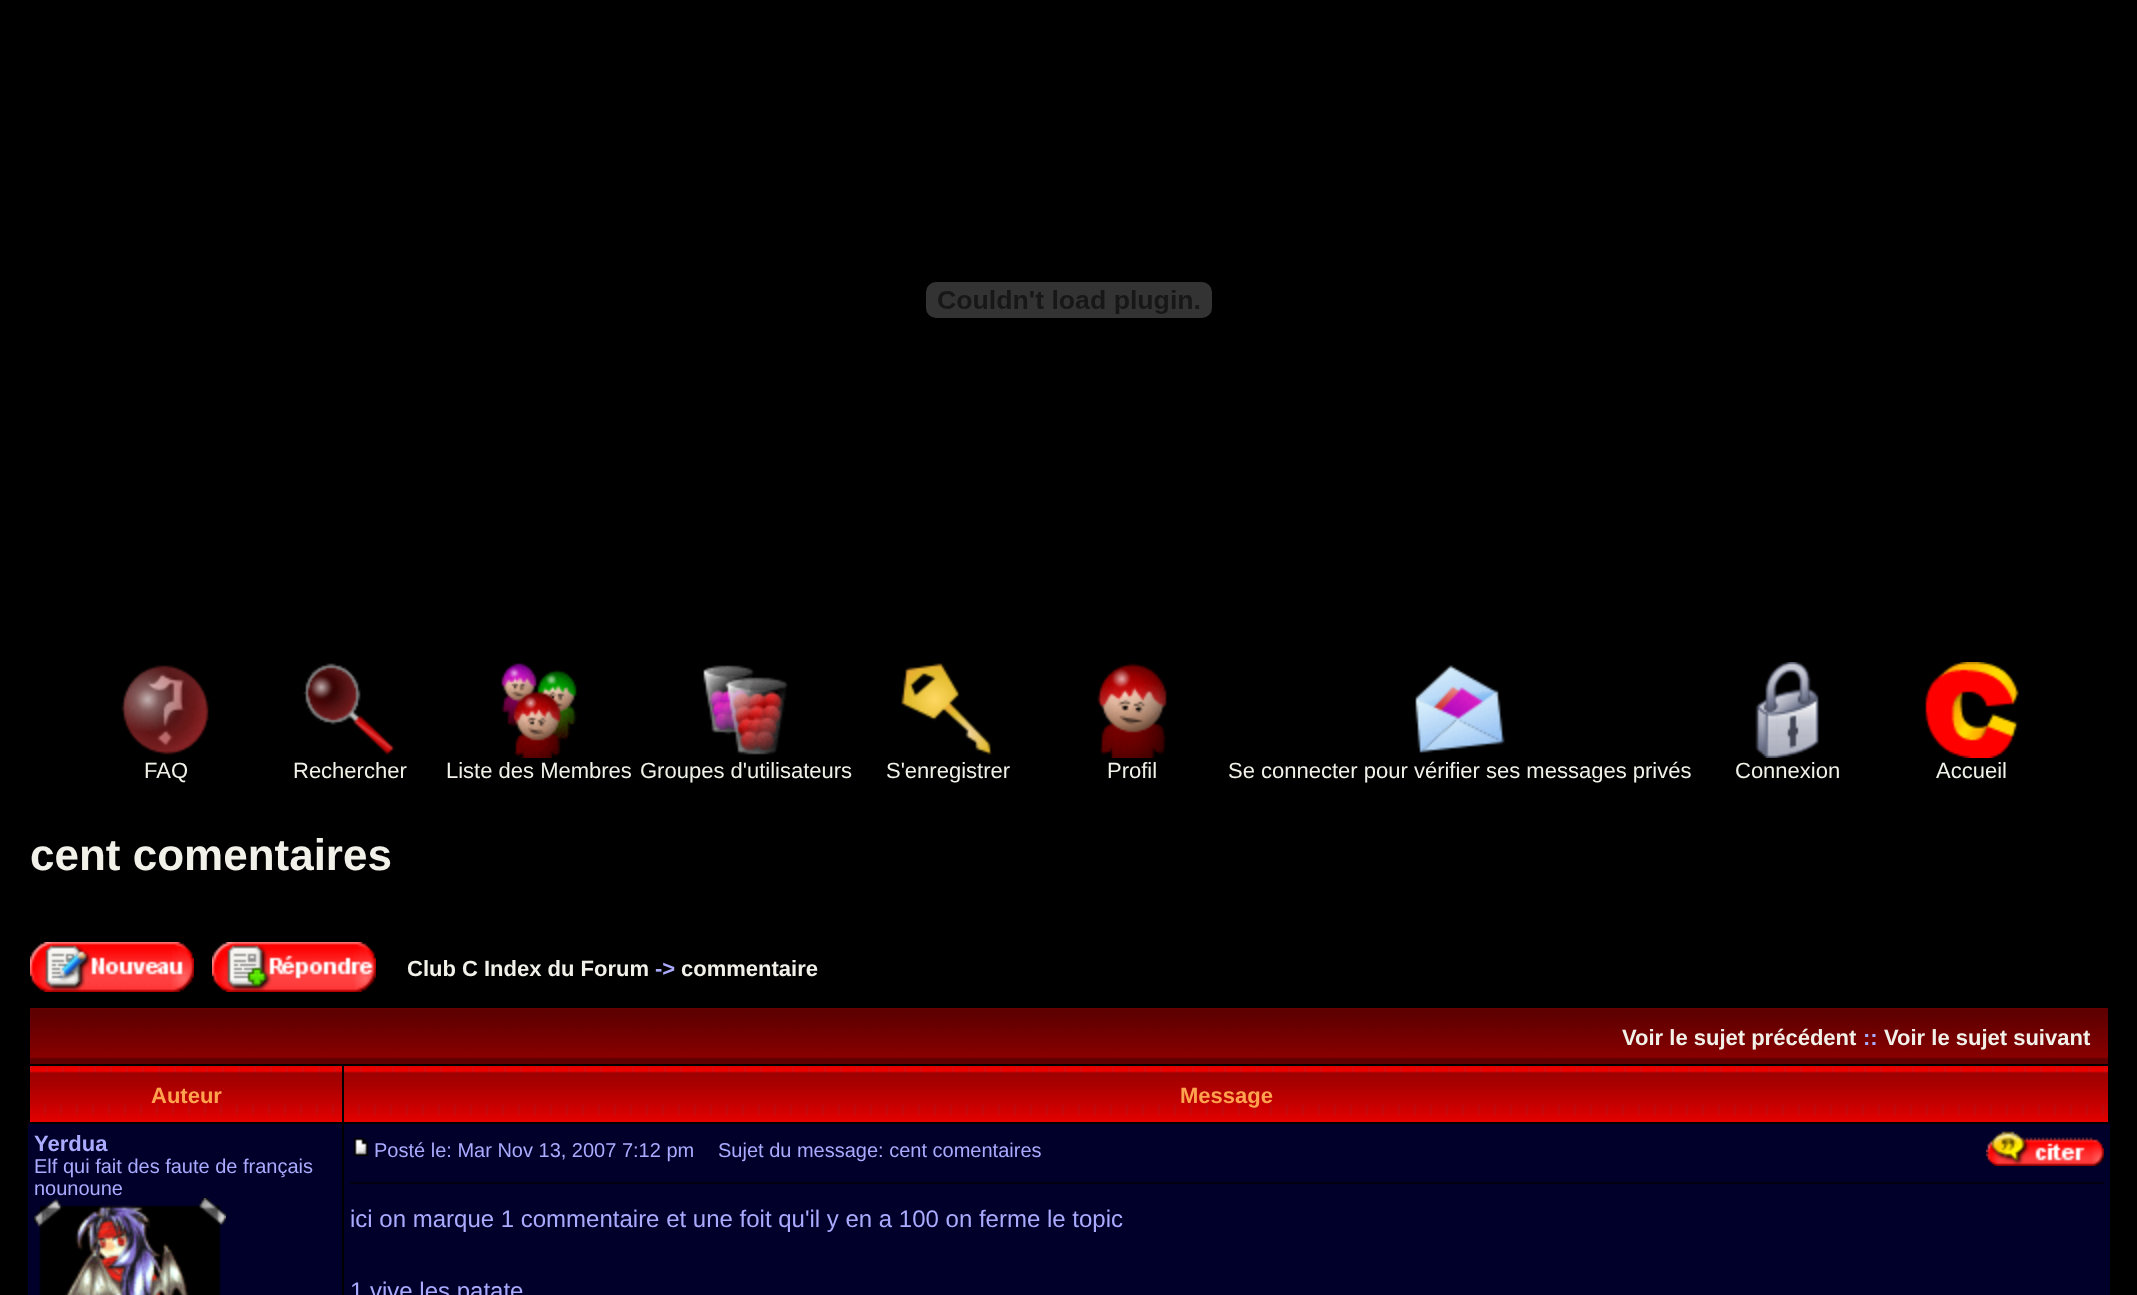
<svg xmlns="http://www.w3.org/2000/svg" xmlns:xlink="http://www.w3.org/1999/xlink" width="2137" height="1295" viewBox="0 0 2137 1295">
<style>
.cls-1{font:22px Liberation Sans;fill:#f1f1e9}
.cls-2{font:bold 44px Liberation Sans;fill:#f1f1e9}
.cls-3{font:bold 22px Liberation Sans;fill:#f1f1e9}
.cls-4{font:bold 22px Liberation Sans;fill:#aaaaff}
.cls-5{font:bold 22px Liberation Sans;fill:#ffa34f}
.cls-6{font:20px Liberation Sans;fill:#aaaaff}
.cls-7{font:24px Liberation Sans;fill:#aaaaff}
</style>
<rect width="100%" height="100%" fill="#000000"/>
<image xlink:href="image0.png" x="926" y="282" width="286" height="36"/>
<image xlink:href="image1.png" x="121" y="665" width="88" height="90"/>
<image xlink:href="image2.png" x="303" y="663" width="92" height="92"/>
<image xlink:href="image3.png" x="501" y="663" width="76" height="95"/>
<image xlink:href="image4.png" x="703" y="665" width="85" height="90"/>
<image xlink:href="image5.png" x="901" y="663" width="92" height="92"/>
<image xlink:href="image6.png" x="1097" y="663" width="70" height="95"/>
<image xlink:href="image7.png" x="1415" y="665" width="90" height="89"/>
<image xlink:href="image8.png" x="1755" y="662" width="64" height="96"/>
<image xlink:href="image9.png" x="1925" y="662" width="94" height="96"/>
<image xlink:href="image10.png" x="30" y="942" width="164" height="50"/>
<image xlink:href="image11.png" x="212" y="942" width="164" height="50"/>
<image xlink:href="image12.png" x="30" y="1008" width="2078" height="56"/>
<image xlink:href="image13.png" x="30" y="1066" width="312" height="56"/>
<image xlink:href="image14.png" x="344" y="1066" width="1764" height="56"/>
<rect fill="#00002a" x="28" y="1124" width="314" height="171"/>
<image xlink:href="image15.png" x="34" y="1198" width="192" height="97"/>
<rect fill="#00002a" x="344" y="1124" width="1766" height="171"/>
<image xlink:href="image16.png" x="353" y="1138" width="16" height="18"/>
<image xlink:href="image17.png" x="1986" y="1131" width="118" height="35"/>
<rect fill="#000011" x="350" y="1182" width="1754" height="2"/>
<text class="cls-1" x="144" y="778">FAQ</text>
<text class="cls-1" x="293" y="778">Rechercher</text>
<text class="cls-1" x="446" y="778">Liste des Membres</text>
<text class="cls-1" x="640" y="778">Groupes d'utilisateurs</text>
<text class="cls-1" x="886" y="778">S'enregistrer</text>
<text class="cls-1" x="1107" y="778">Profil</text>
<text class="cls-1" x="1228" y="778">Se connecter pour vérifier ses messages privés</text>
<text class="cls-1" x="1735" y="778">Connexion</text>
<text class="cls-1" x="1936" y="778">Accueil</text>
<text class="cls-2" x="30" y="870">cent comentaires</text>
<text class="cls-3" x="407" y="976">Club C Index du Forum</text>
<text class="cls-4" x="655" y="976">-&gt;</text>
<text class="cls-3" x="681" y="976">commentaire</text>
<text class="cls-3" x="1622" y="1045">Voir le sujet précédent</text>
<text class="cls-4" x="1863" y="1045">::</text>
<text class="cls-3" x="1884" y="1045">Voir le sujet suivant</text>
<text class="cls-5" x="151" y="1103">Auteur</text>
<text class="cls-5" x="1180" y="1103">Message</text>
<text class="cls-4" x="34" y="1151">Yerdua</text>
<text class="cls-6"><tspan x="34" y="1173">Elf qui fait des faute de français</tspan><tspan x="34" y="1195">nounoune</tspan></text>
<text class="cls-6" x="374" y="1157">Posté le: Mar Nov 13, 2007 7:12 pm</text>
<text class="cls-6" x="718" y="1157">Sujet du message: cent comentaires</text>
<text class="cls-7" x="350" y="1227">ici on marque 1 commentaire et une foit qu'il y en a 100 on ferme le topic</text>
<text class="cls-7" x="350" y="1299">1.vive les patate</text>
</svg>
